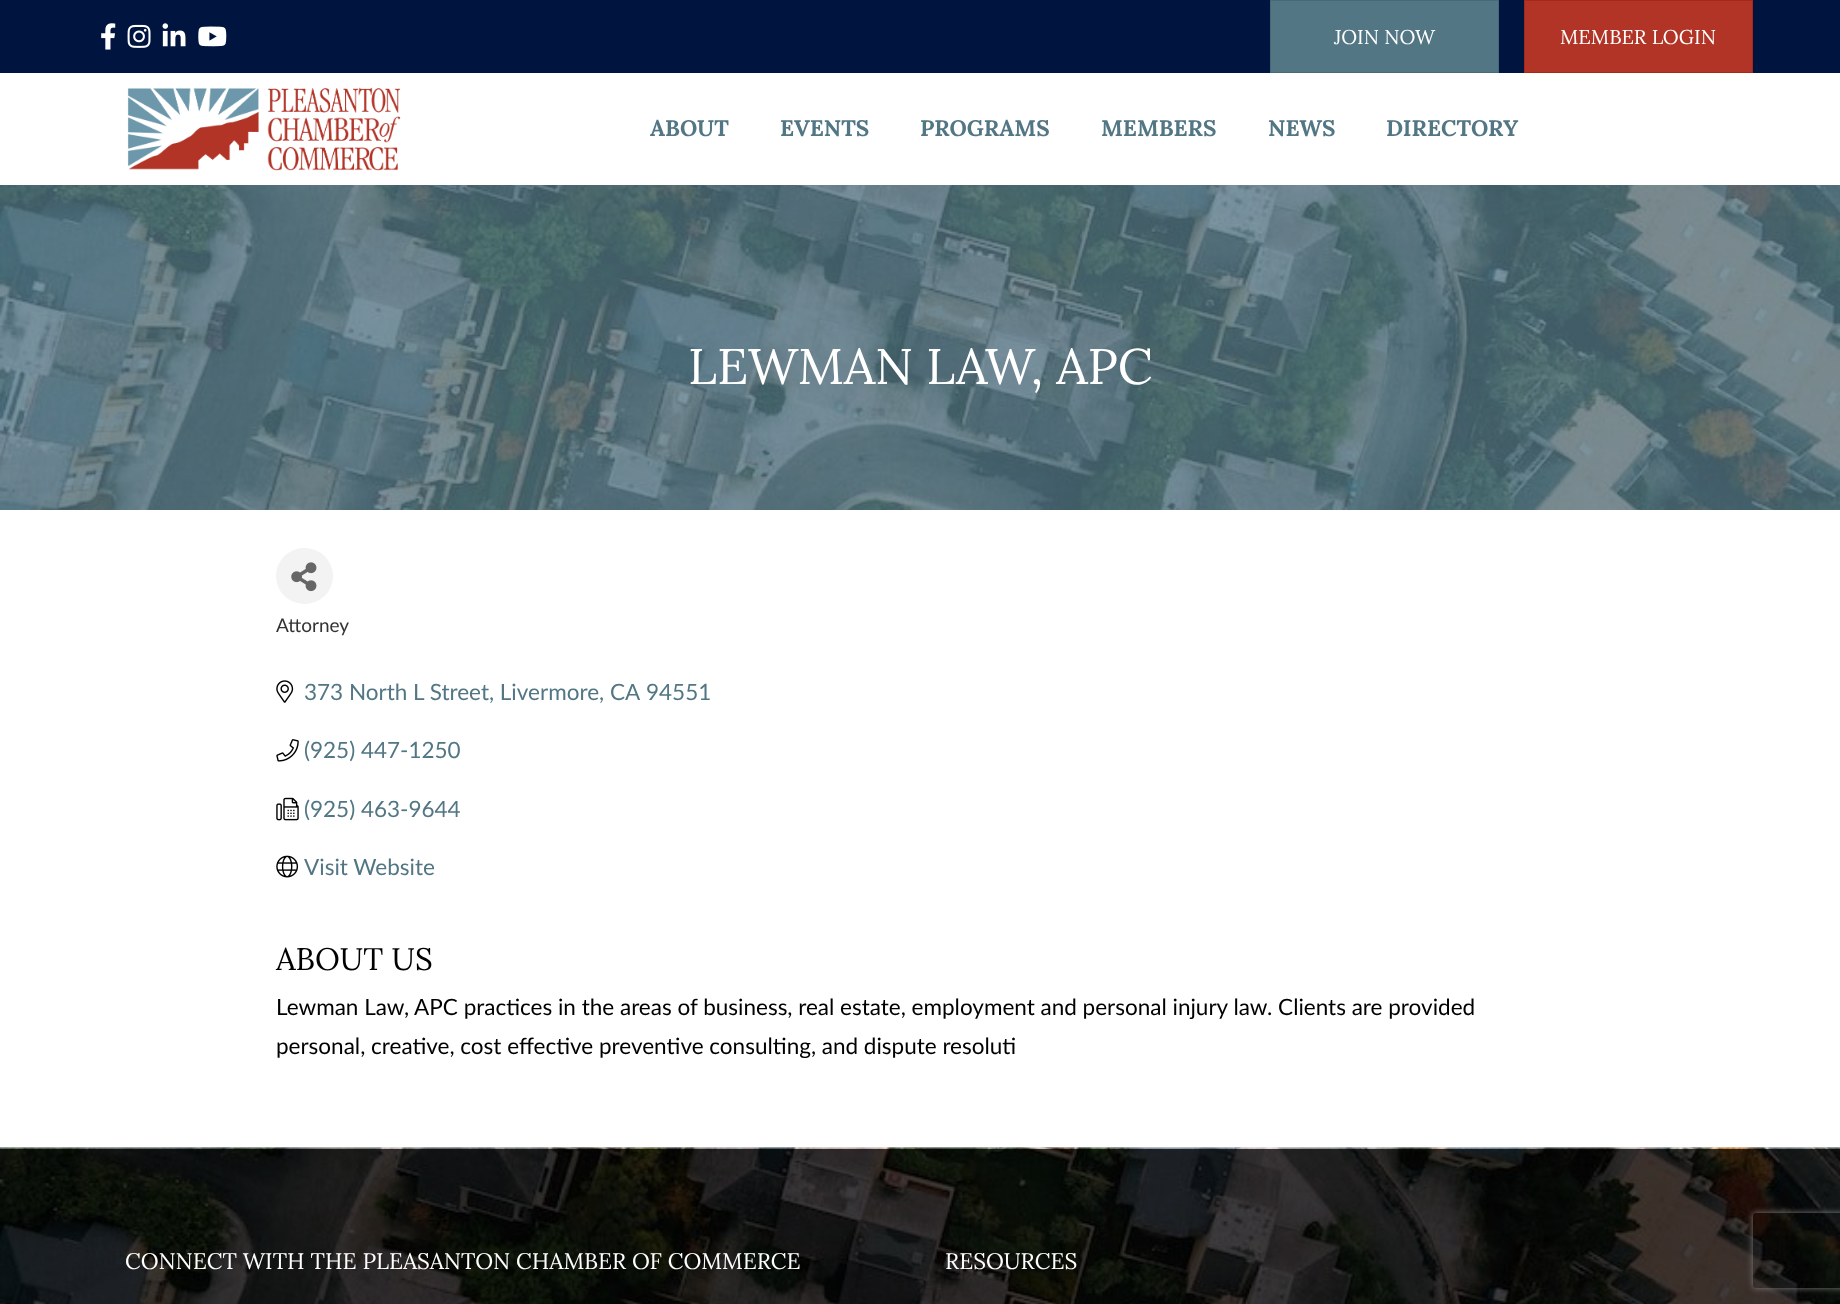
<svg xmlns="http://www.w3.org/2000/svg" xmlns:xlink="http://www.w3.org/1999/xlink" width="1840" height="1304" viewBox="0 0 1840 1304">
<style>
.cls-1{font:20px Lora;fill:#ffffff}
.cls-2{font:bold 22.5px Lora;fill:#527684}
.cls-3{font:50px Lora;fill:#ffffff}
.cls-4{font:19px Lato;fill:#333333}
.cls-5{font:22.5px Lato;fill:#527684}
.cls-6{font:31.25px Lora;fill:#000000}
.cls-7{font:22.5px Lato;fill:#000000}
.cls-8{font:22.5px Lora;fill:#ffffff}
</style>
<defs>
<clipPath id="clip1"><path d="M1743 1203H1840V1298H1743ZM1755.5 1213H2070.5C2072 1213 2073 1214 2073 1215.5V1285.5C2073 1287 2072 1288 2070.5 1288H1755.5C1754 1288 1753 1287 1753 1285.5V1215.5C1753 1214 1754 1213 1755.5 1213Z" clip-rule="evenodd"/></clipPath>
</defs>
<rect width="100%" height="100%" fill="#ffffff"/>
<rect fill="#001440" x="0" y="0" width="1840" height="73"/>
<image xlink:href="image0.png" x="101" y="23" width="15" height="27"/>
<image xlink:href="image1.png" x="127" y="24" width="24" height="24"/>
<image xlink:href="image2.png" x="162" y="23" width="24" height="24"/>
<image xlink:href="image3.png" x="198" y="26" width="29" height="21"/>
<rect fill="#527684" stroke="#466a78" x="1270.5" y="0.5" width="228" height="72"/>
<rect fill="#b23427" stroke="#a6281b" x="1524.5" y="0.5" width="228" height="72"/>
<image xlink:href="image4.png" x="127" y="87" width="274" height="84"/>
<image xlink:href="image5.png" x="0" y="185" width="1840" height="325"/>
<rect fill="#f3f3f3" x="276" y="548" width="57" height="56" rx="28"/>
<image xlink:href="image6.png" x="291" y="562" width="26" height="30"/>
<image xlink:href="image7.png" x="276" y="680" width="18" height="23"/>
<image xlink:href="image8.png" x="276" y="739" width="23" height="23"/>
<image xlink:href="image9.png" x="276" y="797" width="23" height="24"/>
<image xlink:href="image10.png" x="276" y="855" width="23" height="23"/>
<image xlink:href="image11.png" x="0" y="1147" width="1840" height="157"/>
<rect fill="#f3f3f3" fill-opacity="0.2" x="0" y="1148" width="1840" height="1"/>
<g clip-path="url(#clip1)">
<rect fill="#808080" filter="blur(3px)" x="1753" y="1213" width="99" height="75" rx="2.5"/>
</g>
<text class="cls-1" x="1334" y="44">JOIN NOW</text>
<text class="cls-1" x="1560" y="44">MEMBER LOGIN</text>
<text class="cls-2" x="650" y="136">ABOUT</text>
<text class="cls-2" x="780" y="136">EVENTS</text>
<text class="cls-2" x="920" y="136">PROGRAMS</text>
<text class="cls-2" x="1101" y="136">MEMBERS</text>
<text class="cls-2" x="1268" y="136">NEWS</text>
<text class="cls-2" x="1386" y="136">DIRECTORY</text>
<text class="cls-3" x="688" y="384">LEWMAN LAW, APC</text>
<text class="cls-4" x="276" y="632">Attorney</text>
<text class="cls-5" x="304" y="700">373 North L Street, Livermore, CA</text>
<text class="cls-5" x="646" y="700">94551</text>
<text class="cls-5" x="304" y="758">(925) 447-1250</text>
<text class="cls-5" x="304" y="817">(925) 463-9644</text>
<text class="cls-5" x="304" y="875">Visit Website</text>
<text class="cls-6" x="276" y="970">ABOUT US</text>
<text class="cls-7"><tspan x="276" y="1015">Lewman Law, APC practices in the areas of business, real estate, employment and personal injury law. Clients are provided</tspan><tspan x="276" y="1054">personal, creative, cost effective preventive consulting, and dispute resoluti</tspan></text>
<text class="cls-8" x="125" y="1269">CONNECT WITH THE PLEASANTON CHAMBER OF COMMERCE</text>
<text class="cls-8" x="945" y="1269">RESOURCES</text>
</svg>
